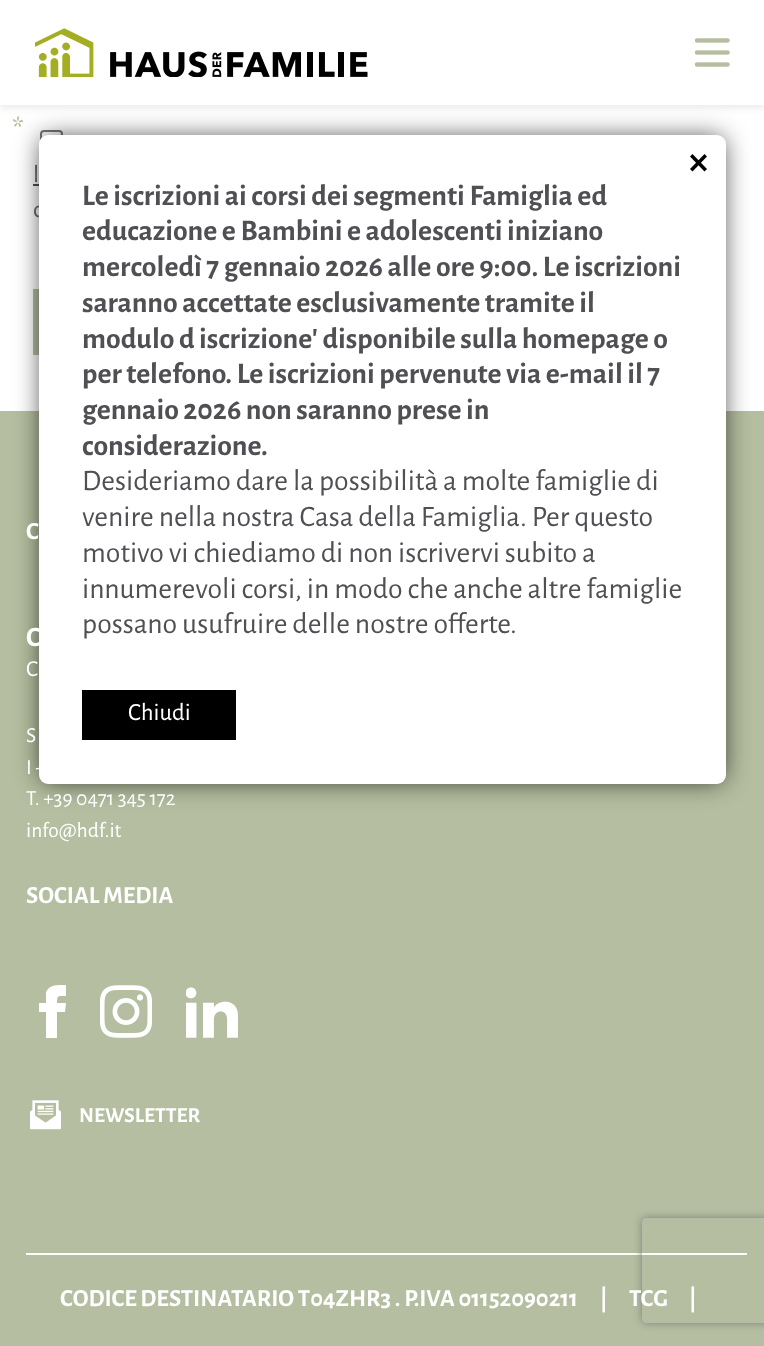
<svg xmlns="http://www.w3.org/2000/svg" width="764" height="1346">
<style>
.a{font:32px Alegreya Sans;fill:#b5bea0}
.b{font:24.6px Alegreya Sans;fill:#504f53}
.c{font:bold 29.75px Alegreya Sans;fill:#504f53}
.d{font:29.75px Alegreya Sans;fill:#504f53}
.e{font:24.6px Alegreya Sans;fill:#fff}
.f{font:bold 24.6px Alegreya Sans;fill:#fff}
.g{font:bold 28px Alegreya Sans;letter-spacing:3px;fill:#fff}
.h{font:23px Alegreya Sans;fill:#fff}
.i{font:21.5px Alegreya Sans;fill:#fff}
.j{font:bold 21.5px Alegreya Sans;fill:#fff}
</style>
<defs>
<clipPath id="clip1"><path d="M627 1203h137v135h-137zm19 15h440c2 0 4 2 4 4v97c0 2-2 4-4 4h-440c-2 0-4-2-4-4v-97c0-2 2-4 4-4z" clip-rule="evenodd"/></clipPath>
</defs>
<rect width="100%" height="100%" fill="#fff"/>
<path fill="#0000001a" filter="blur(4.5px)" d="M0 2h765v105H0z"/>
<path fill="#fff" d="M0 0h764v105H0z"/>
<image href="1.png" x="35" y="28" width="333" height="49"/>
<image href="2.png" x="695" y="38" width="35" height="29"/>
<rect fill="none" stroke="#767676" stroke-width="2" x="41" y="131" width="21" height="20" rx="3"/>
<path fill="#504f53" d="M33 184h6v2H33z"/>
<path fill="#b5bea0" d="M33 289h6v66H33z"/>
<path fill="#b5bea0" d="M0 411h764v935H0z"/>
<rect fill="#000000bf" filter="blur(13px)" x="42" y="138" width="681" height="643" rx="5"/>
<path fill="#fff" d="M46 1003h-7v9h7v26h11v-26h8l1-9h-9c0-8 1-7 9-7v-11c-7 0-18-1-20 8z"/>
<image href="3.png" x="100" y="985" width="52" height="53"/>
<image href="4.png" x="186" y="987" width="52" height="51"/>
<image href="5.png" x="30" y="1100" width="31" height="30"/>
<path fill="#fff" d="M26 1253h721v2H26z"/>
<g clip-path="url(#clip1)">
<rect fill="#808080" filter="blur(4.5px)" x="642" y="1218" width="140" height="105" rx="4"/>
</g>
<text class="a" x="12" y="140">*</text>
<text class="b" x="33" y="182">l</text>
<text class="b" x="33" y="217">c</text>
<rect fill="#fff" x="39" y="135" width="687" height="649" rx="9"/>
<path fill="#000" d="M692.5 154l14.5 15l-2.5 2.5l-14.5-15z"/>
<path fill="#000" d="M704.5 154l2.5 2.5l-14.5 15l-2.5-2.5z"/>
<text class="c" x="82" y="205">Le iscrizioni ai corsi dei segmenti Famiglia ed</text>
<text class="c" x="82" y="240">educazione e Bambini e adolescenti iniziano</text>
<text class="c" x="82" y="276">mercoledì 7 gennaio 2026 alle ore 9:00. Le iscrizioni</text>
<text class="c" x="82" y="312">saranno accettate esclusivamente tramite il</text>
<text class="c" x="82" y="348">modulo d iscrizione' disponibile sulla homepage o</text>
<text class="c" x="82" y="383">per telefono. Le iscrizioni pervenute via e-mail il 7</text>
<text class="c" x="82" y="419">gennaio 2026 non saranno prese in</text>
<text class="c" x="82" y="455">considerazione.</text>
<text class="d" x="82" y="490">Desideriamo dare la possibilità a molte famiglie di</text>
<text class="d" x="82" y="526">venire nella nostra Casa della Famiglia. Per questo</text>
<text class="d" x="82" y="562">motivo vi chiediamo di non iscrivervi subito a</text>
<text class="d" x="82" y="598">innumerevoli corsi, in modo che anche altre famiglie</text>
<text class="d" x="82" y="633">possano usufruire delle nostre offerte.</text>
<path fill="#000" d="M82 690h154v50H82z"/>
<text class="e" x="128" y="720">Chiudi</text>
<text class="f" x="26" y="539">C</text>
<text class="g" x="26" y="646">C</text>
<text class="h" x="26" y="676">C</text>
<text class="i" x="26" y="742">S</text>
<text class="i" x="26" y="774">I -</text>
<text class="i" x="26" y="805">T. +39 0471 345 172</text>
<text class="i" x="26" y="837">info@hdf.it</text>
<text class="f" x="26" y="903">SOCIAL MEDIA</text>
<text class="j" x="79" y="1122">NEWSLETTER</text>
<text class="f" x="60" y="1306">CODICE DESTINATARIO T04ZHR3 . P.IVA 01152090211</text>
<text class="f" x="600" y="1306">|</text>
<text class="f" x="629" y="1306">TCG</text>
<text class="f" x="689" y="1306">|</text>
</svg>
